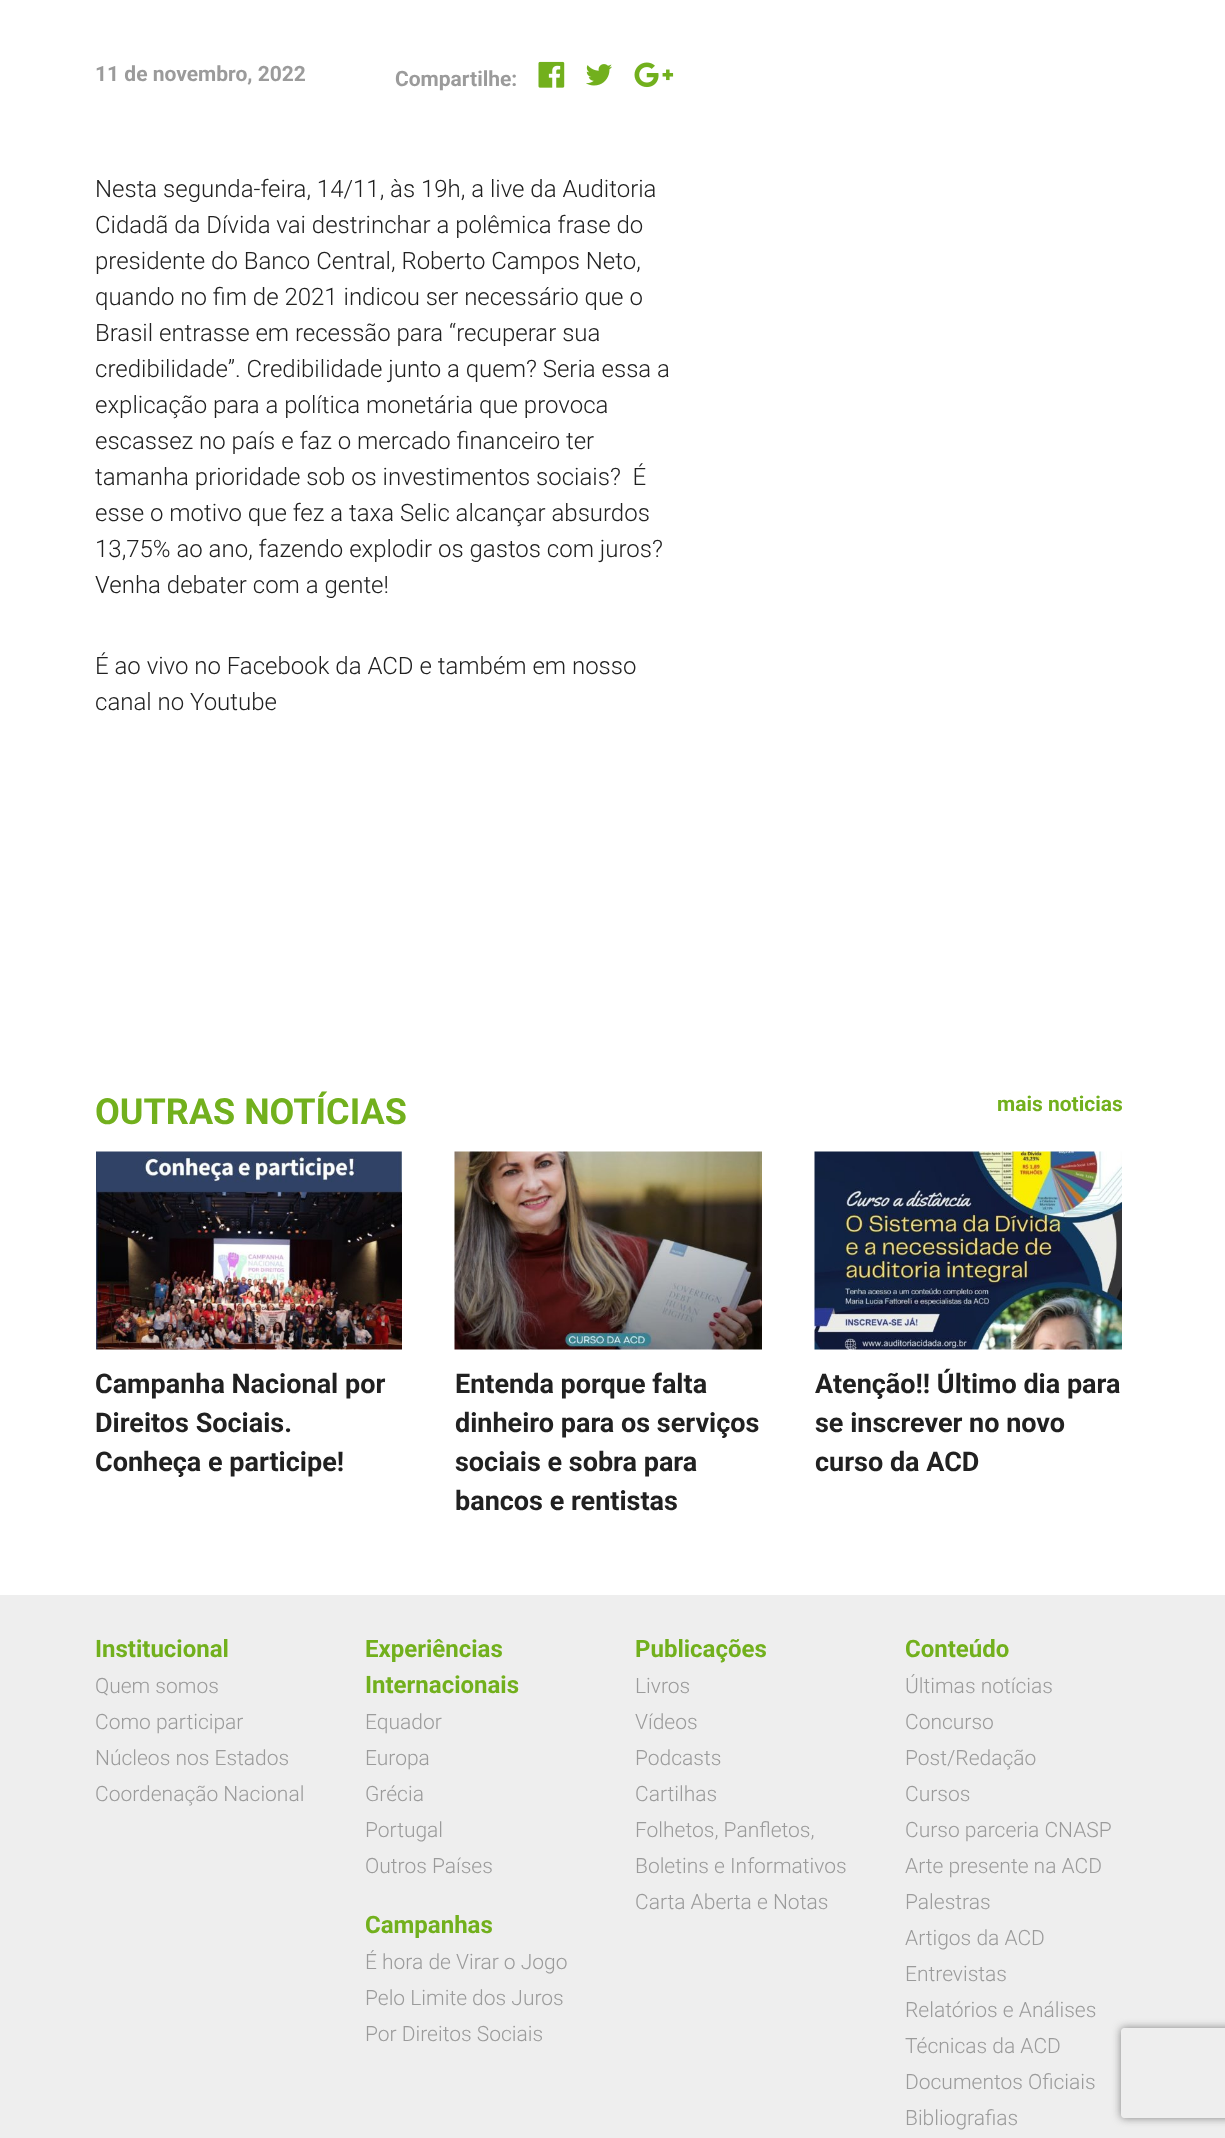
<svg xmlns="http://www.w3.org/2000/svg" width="1225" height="2138">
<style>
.a{font:bold 21px Roboto;fill:#9b9b9b}
.b{font:300 24px Roboto;fill:#212121}
.c{font:bold 36px Roboto;fill:#72b01d}
.d{font:bold 21px Roboto;fill:#72b01d}
.e{font:bold 27px Roboto;fill:#212121}
.f{font:bold 24px Roboto;fill:#72b01d}
.g{font:300 21px Roboto;fill:#9b9b9b}
</style>
<defs>
<clipPath id="clip1"><path d="M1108 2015h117v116h-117zm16 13h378c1.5 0 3 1.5 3 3v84c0 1.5-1.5 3-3 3h-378c-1.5 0-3-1.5-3-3v-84c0-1.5 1.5-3 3-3z" clip-rule="evenodd"/></clipPath>
</defs>
<rect width="100%" height="100%" fill="#fff"/>
<image href="1.png" x="538" y="61" width="27" height="27"/>
<image href="2.png" x="586" y="64" width="26" height="22"/>
<image href="3.png" x="634" y="62" width="40" height="26"/>
<image href="4.png" x="96" y="1151" width="306" height="199"/>
<image href="5.png" x="454" y="1151" width="308" height="199"/>
<image href="6.png" x="814" y="1151" width="308" height="199"/>
<path fill="#eee" d="M0 1595h1225v543H0z"/>
<g clip-path="url(#clip1)">
<rect fill="#808080" filter="blur(4px)" x="1121" y="2028" width="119" height="90" rx="3"/>
</g>
<text class="a" x="95" y="81">11 de novembro, 2022</text>
<text class="a" x="395" y="86">Compartilhe:</text>
<text class="b" x="95" y="197">Nesta segunda-feira, 14/11, às 19h, a live da Auditoria</text>
<text class="b" x="95" y="233">Cidadã da Dívida vai destrinchar a polêmica frase do</text>
<text class="b" x="95" y="269">presidente do Banco Central, Roberto Campos Neto,</text>
<text class="b" x="95" y="305">quando no fim de 2021 indicou ser necessário que o</text>
<text class="b" x="95" y="341">Brasil entrasse em recessão para “recuperar sua</text>
<text class="b" x="95" y="377">credibilidade”. Credibilidade junto a quem? Seria essa a</text>
<text class="b" x="95" y="413">explicação para a política monetária que provoca</text>
<text class="b" x="95" y="449">escassez no país e faz o mercado financeiro ter</text>
<text class="b" xml:space="preserve" x="95" y="485">tamanha prioridade sob os investimentos sociais?  É</text>
<text class="b" x="95" y="521">esse o motivo que fez a taxa Selic alcançar absurdos</text>
<text class="b" x="95" y="557">13,75% ao ano, fazendo explodir os gastos com juros?</text>
<text class="b" x="95" y="593">Venha debater com a gente!</text>
<text class="b" x="95" y="674">É ao vivo no Facebook da ACD e também em nosso</text>
<text class="b" x="95" y="710">canal no Youtube</text>
<text class="c" x="95" y="1124">OUTRAS NOTÍCIAS</text>
<text class="d" x="997" y="1111">mais noticias</text>
<text class="e" x="95" y="1393">Campanha Nacional por</text>
<text class="e" x="95" y="1432">Direitos Sociais.</text>
<text class="e" x="95" y="1471">Conheça e participe!</text>
<text class="e" x="455" y="1393">Entenda porque falta</text>
<text class="e" x="455" y="1432">dinheiro para os serviços</text>
<text class="e" x="455" y="1471">sociais e sobra para</text>
<text class="e" x="455" y="1510">bancos e rentistas</text>
<text class="e" x="815" y="1393">Atenção!! Último dia para</text>
<text class="e" x="815" y="1432">se inscrever no novo</text>
<text class="e" x="815" y="1471">curso da ACD</text>
<text class="f" x="95" y="1657">Institucional</text>
<text class="g" x="95" y="1693">Quem somos</text>
<text class="g" x="95" y="1729">Como participar</text>
<text class="g" x="95" y="1765">Núcleos nos Estados</text>
<text class="g" x="95" y="1801">Coordenação Nacional</text>
<text class="f" x="365" y="1657">Experiências</text>
<text class="f" x="365" y="1693">Internacionais</text>
<text class="g" x="365" y="1729">Equador</text>
<text class="g" x="365" y="1765">Europa</text>
<text class="g" x="365" y="1801">Grécia</text>
<text class="g" x="365" y="1837">Portugal</text>
<text class="g" x="365" y="1873">Outros Países</text>
<text class="f" x="365" y="1933">Campanhas</text>
<text class="g" x="365" y="1969">É hora de Virar o Jogo</text>
<text class="g" x="365" y="2005">Pelo Limite dos Juros</text>
<text class="g" x="365" y="2041">Por Direitos Sociais</text>
<text class="f" x="635" y="1657">Publicações</text>
<text class="g" x="635" y="1693">Livros</text>
<text class="g" x="635" y="1729">Vídeos</text>
<text class="g" x="635" y="1765">Podcasts</text>
<text class="g" x="635" y="1801">Cartilhas</text>
<text class="g" x="635" y="1837">Folhetos, Panfletos,</text>
<text class="g" x="635" y="1873">Boletins e Informativos</text>
<text class="g" x="635" y="1909">Carta Aberta e Notas</text>
<text class="f" x="905" y="1657">Conteúdo</text>
<text class="g" x="905" y="1693">Últimas notícias</text>
<text class="g" x="905" y="1729">Concurso</text>
<text class="g" x="905" y="1765">Post/Redação</text>
<text class="g" x="905" y="1801">Cursos</text>
<text class="g" x="905" y="1837">Curso parceria CNASP</text>
<text class="g" x="905" y="1873">Arte presente na ACD</text>
<text class="g" x="905" y="1909">Palestras</text>
<text class="g" x="905" y="1945">Artigos da ACD</text>
<text class="g" x="905" y="1981">Entrevistas</text>
<text class="g" x="905" y="2017">Relatórios e Análises</text>
<text class="g" x="905" y="2053">Técnicas da ACD</text>
<text class="g" x="905" y="2089">Documentos Oficiais</text>
<text class="g" x="905" y="2125">Bibliografias</text>
</svg>
